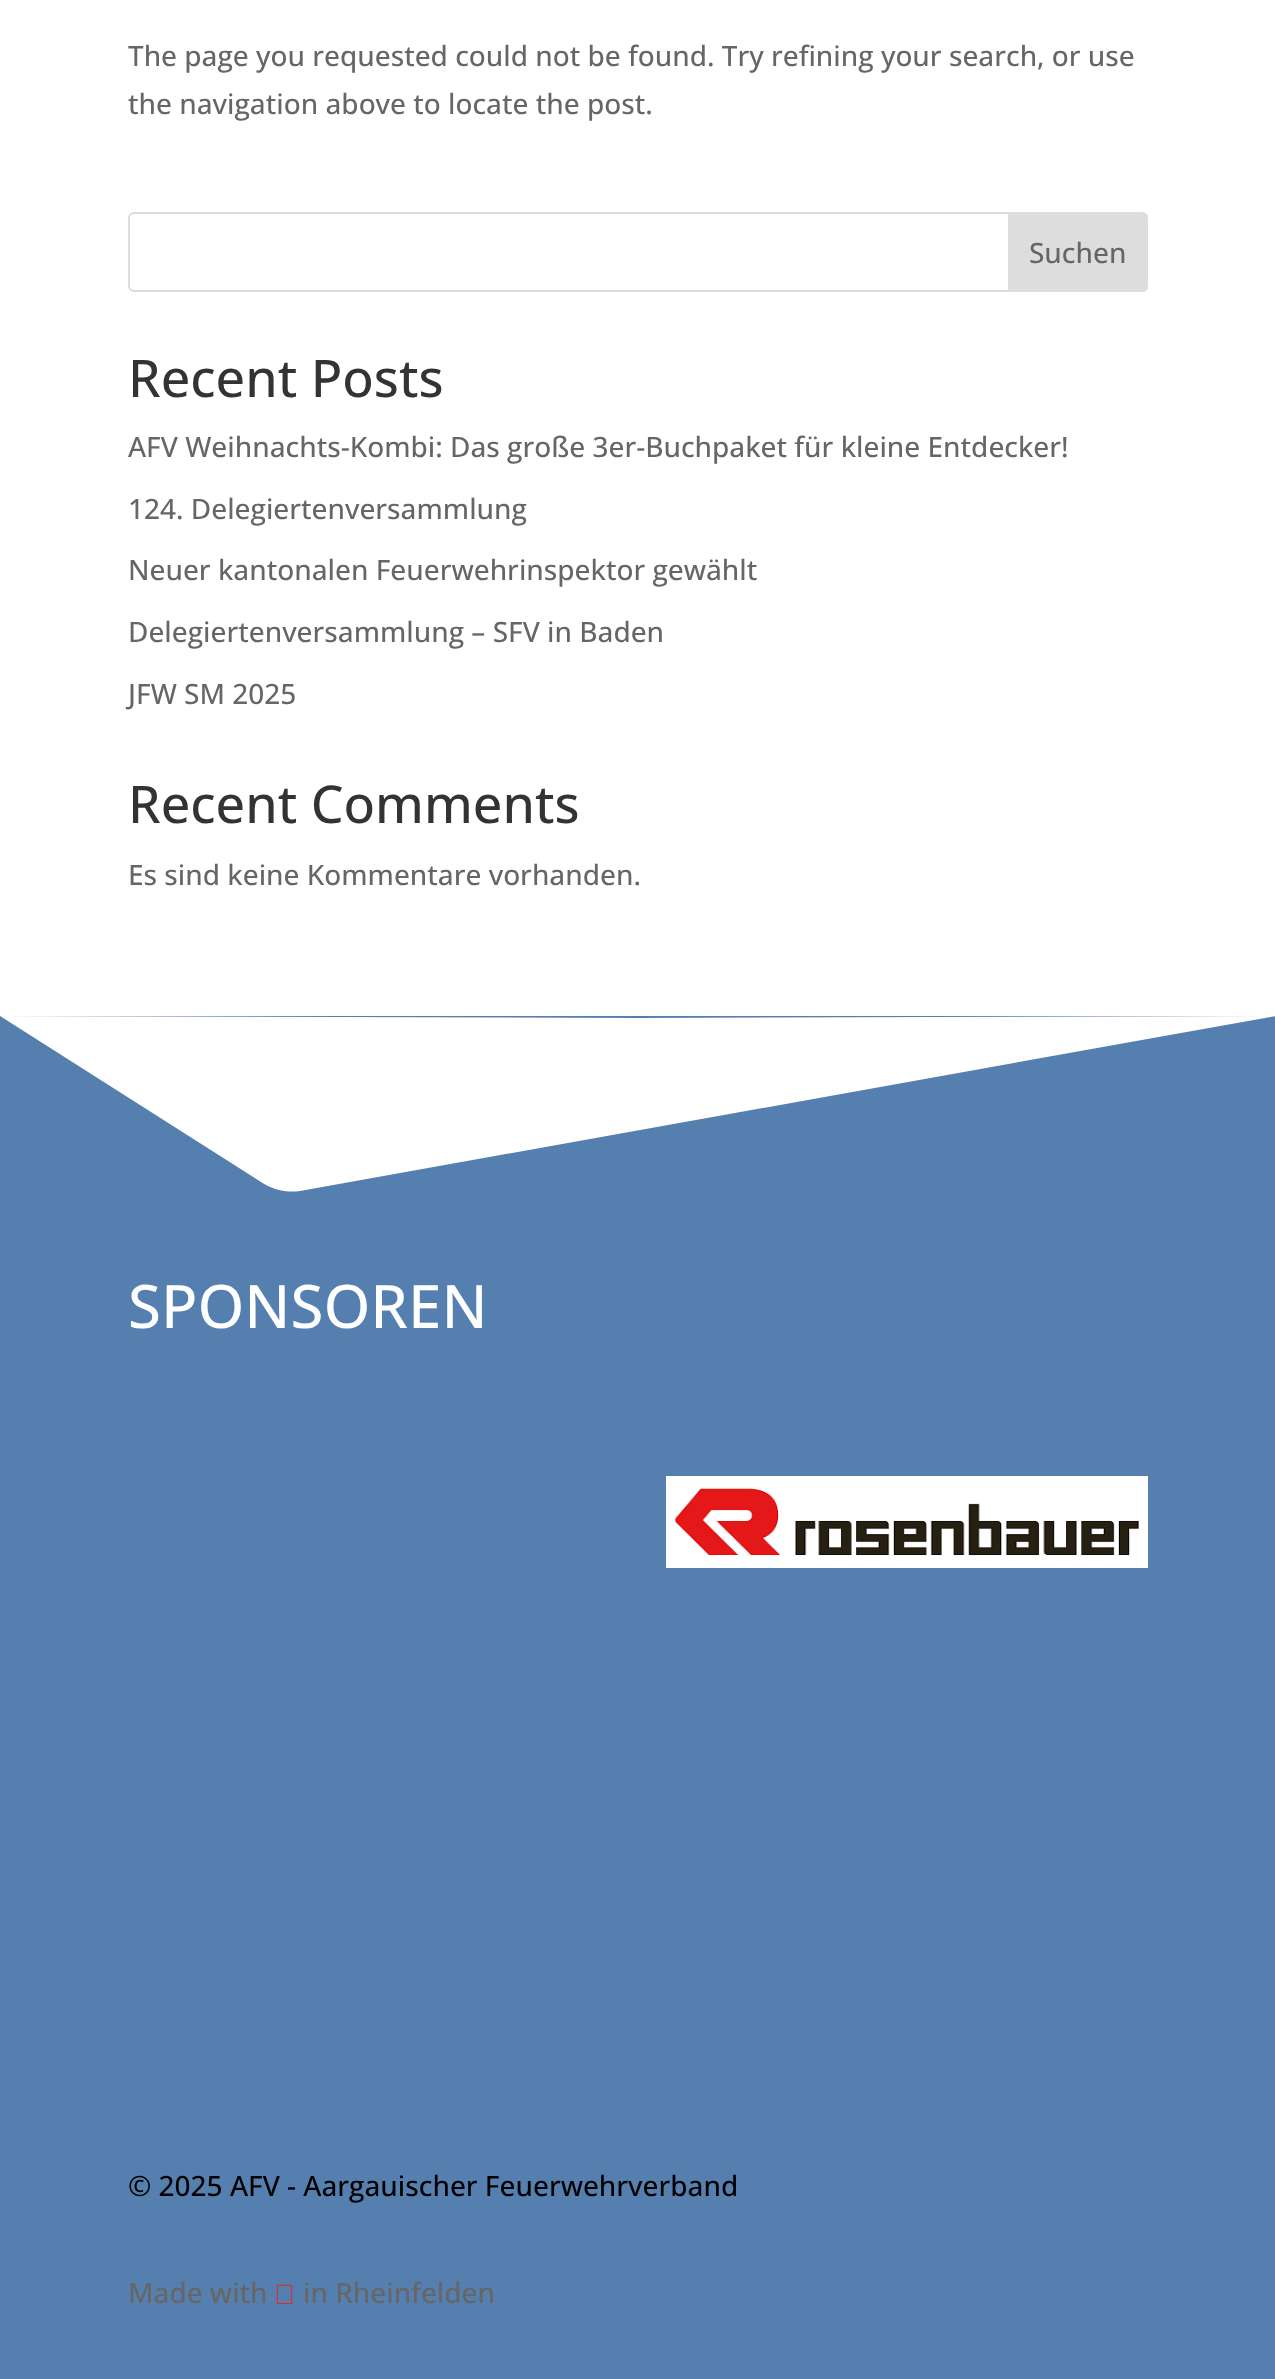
<svg xmlns="http://www.w3.org/2000/svg" width="1275" height="2379">
<style>
.a{font:500 28px Open Sans;fill:#666}
.b{font:500 52px Open Sans;fill:#333}
.c{font:500 60px Open Sans;fill:#fff}
.d{font:500 28px Open Sans;fill:#000}
</style>
<rect width="100%" height="100%" fill="#fff"/>
<rect fill="none" stroke="#ddd" stroke-width="2" x="129" y="213" width="1018" height="78" rx="5"/>
<path fill="#ddd" stroke="#ddd" stroke-width="2" d="M1009 213h133c3 0 5 2 5 5v68c0 3-2 5-5 5h-133z"/>
<path fill="#557fae" d="M638 1018l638-2h-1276z"/>
<path fill="#557fae" d="M0 1016l261 166c12 8 26 11 39 9l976-175v200h-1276z"/>
<path fill="#557fae" d="M0 1216h1275v1163H0z"/>
<image href="1.png" x="666" y="1476" width="482" height="92"/>
<image href="2.png" x="276" y="2284" width="17" height="20"/>
<text class="a" x="128" y="66">The page you requested could not be found. Try refining your search, or use</text>
<text class="a" x="128" y="114">the navigation above to locate the post.</text>
<text class="a" x="1029" y="263">Suchen</text>
<text class="b" x="128" y="397">Recent Posts</text>
<text class="a" x="128" y="457">AFV Weihnachts-Kombi: Das große 3er-Buchpaket für kleine Entdecker!</text>
<text class="a" x="128" y="519">124. Delegiertenversammlung</text>
<text class="a" x="128" y="580">Neuer kantonalen Feuerwehrinspektor gewählt</text>
<text class="a" x="128" y="642">Delegiertenversammlung – SFV in Baden</text>
<text class="a" x="128" y="704">JFW SM 2025</text>
<text class="b" x="128" y="823">Recent Comments</text>
<text class="a" x="128" y="885">Es sind keine Kommentare vorhanden.</text>
<text class="c" x="128" y="1328">SPONSOREN</text>
<text class="d" x="128" y="2196">© 2025 AFV - Aargauischer Feuerwehrverband</text>
<text class="a" x="128" y="2303">Made with</text>
<text class="a" x="303" y="2303">in Rheinfelden</text>
</svg>
